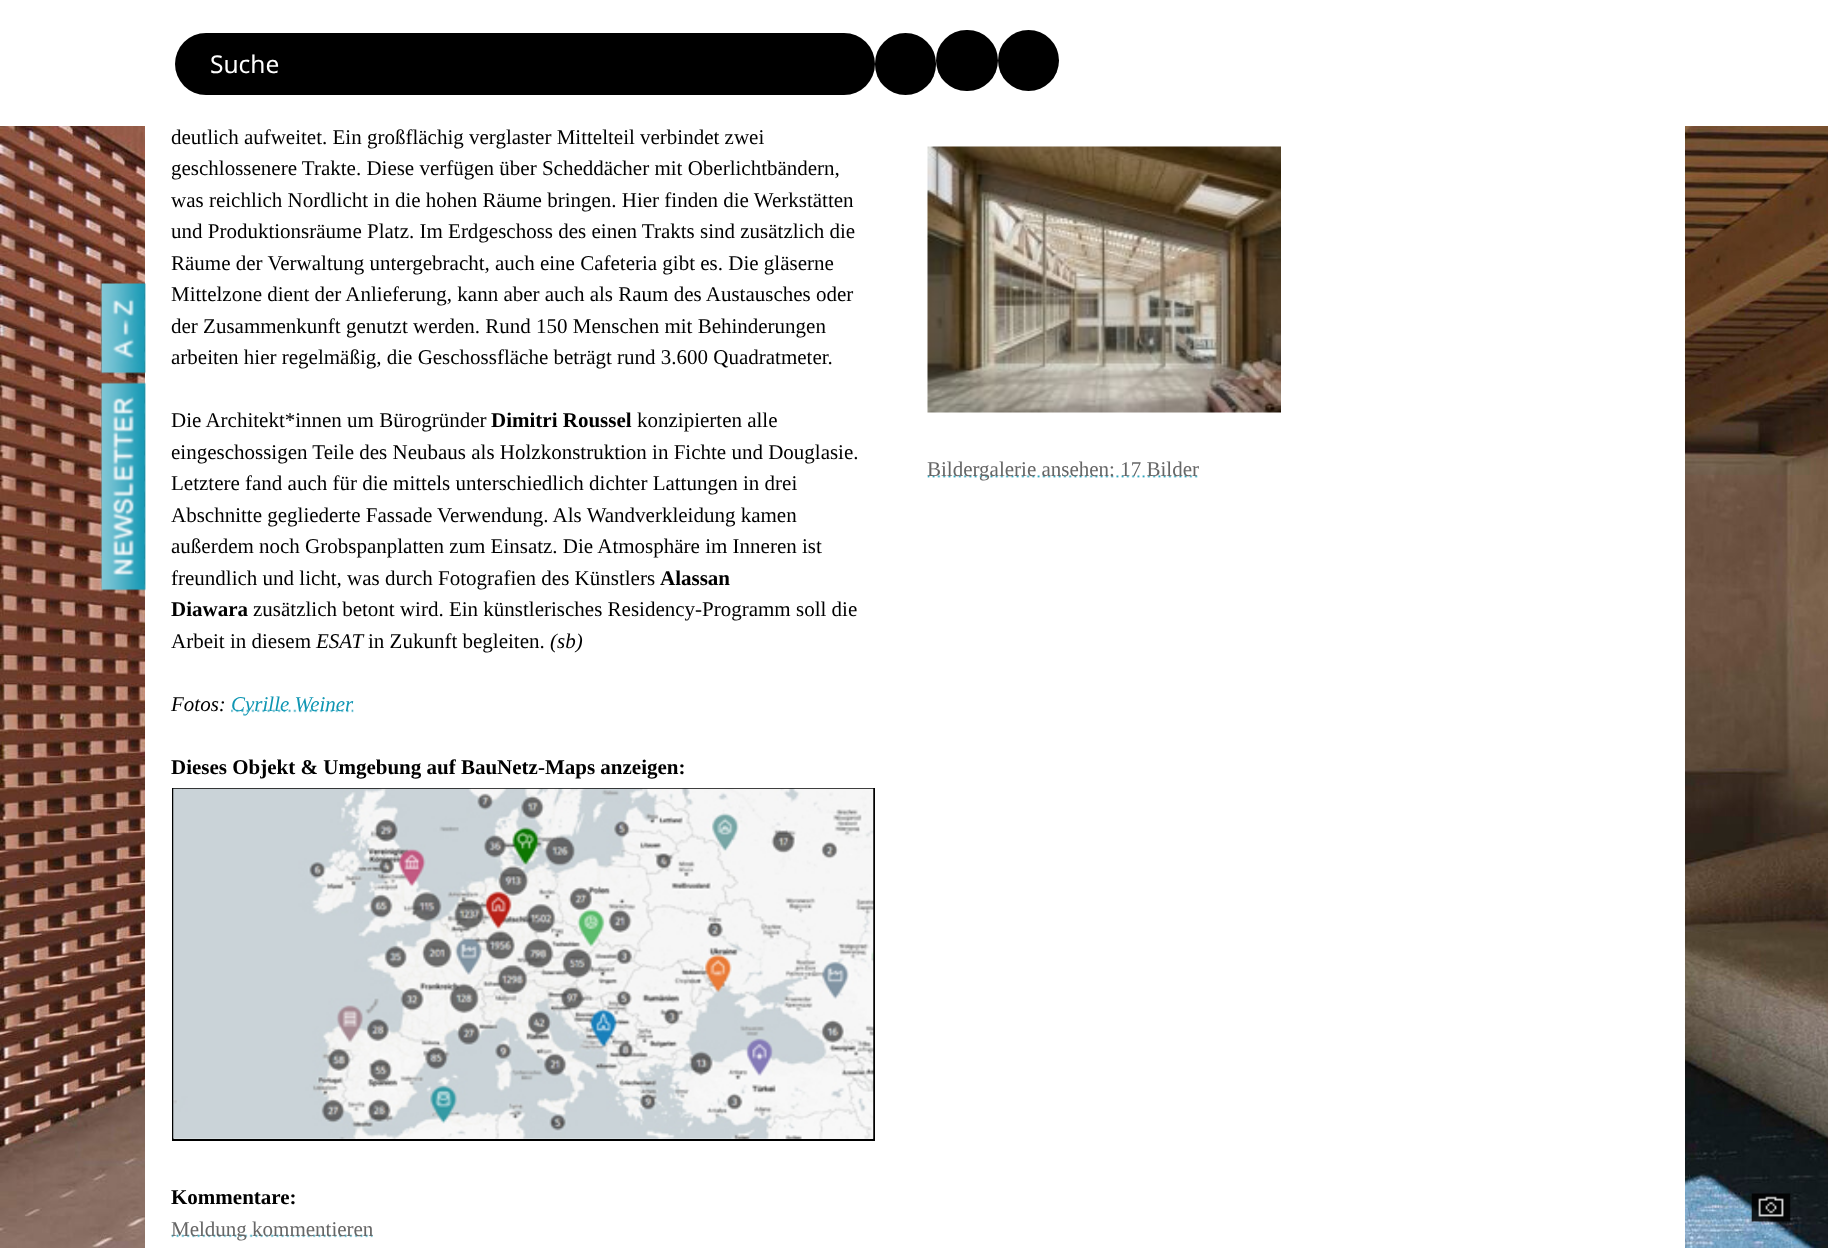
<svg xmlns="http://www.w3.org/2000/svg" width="1828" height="1248">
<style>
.a{font:24.5px Noto Sans;fill:#fff}
.b{font:21px Liberation Serif;fill:#000}
.c{font:bold 21px Liberation Serif;fill:#000}
.d{font:italic 21px Liberation Serif;fill:#000}
.e{font:italic 21px Liberation Serif;fill:#0f96b3}
.f{font:21px Liberation Serif;fill:#666}
</style>
<rect width="100%" height="100%" fill="#fff"/>
<image href="1.png" x="0" y="126" width="1828" height="1122"/>
<rect fill="#000" x="175" y="33" width="700" height="62" rx="31"/>
<rect fill="#000" x="875" y="33" width="61" height="62" rx="30.5"/>
<rect fill="#000" x="936" y="30" width="62" height="61" rx="30.5"/>
<circle fill="#000" cx="1028.5" cy="60.5" r="30.5"/>
<path fill="#fff" d="M145 126h1540v1122H145z"/>
<image href="2.png" x="100" y="283" width="46" height="91"/>
<image href="3.png" x="100" y="382" width="46" height="209"/>
<image href="4.png" x="231" y="709" width="123" height="4"/>
<path fill="none" stroke="#000" stroke-width="2" d="M173 789h701v351H173z"/>
<image href="5.png" x="173" y="788" width="701" height="351"/>
<image href="6.png" x="171" y="1234" width="202" height="4"/>
<image href="7.png" x="927" y="146" width="354" height="267"/>
<image href="8.png" x="927" y="475" width="271" height="3"/>
<image href="9.png" x="1751" y="1193" width="40" height="29"/>
<text class="a" x="210" y="73">Suche</text>
<text class="b" x="171" y="144">deutlich aufweitet. Ein großflächig verglaster Mittelteil verbindet zwei</text>
<text class="b" x="171" y="175">geschlossenere Trakte. Diese verfügen über Scheddächer mit Oberlichtbändern,</text>
<text class="b" x="171" y="207">was reichlich Nordlicht in die hohen Räume bringen. Hier finden die Werkstätten</text>
<text class="b" x="171" y="238">und Produktionsräume Platz. Im Erdgeschoss des einen Trakts sind zusätzlich die</text>
<text class="b" x="171" y="270">Räume der Verwaltung untergebracht, auch eine Cafeteria gibt es. Die gläserne</text>
<text class="b" x="171" y="301">Mittelzone dient der Anlieferung, kann aber auch als Raum des Austausches oder</text>
<text class="b" x="171" y="333">der Zusammenkunft genutzt werden. Rund 150 Menschen mit Behinderungen</text>
<text class="b" x="171" y="364">arbeiten hier regelmäßig, die Geschossfläche beträgt rund 3.600 Quadratmeter.</text>
<text class="b" x="171" y="427">Die Architekt*innen um Bürogründer</text>
<text class="c" x="491" y="427">Dimitri Roussel</text>
<text class="b" x="637" y="427">konzipierten alle</text>
<text class="b" x="171" y="459">eingeschossigen Teile des Neubaus als Holzkonstruktion in Fichte und Douglasie.</text>
<text class="b" x="171" y="490">Letztere fand auch für die mittels unterschiedlich dichter Lattungen in drei</text>
<text class="b" x="171" y="522">Abschnitte gegliederte Fassade Verwendung. Als Wandverkleidung kamen</text>
<text class="b" x="171" y="553">außerdem noch Grobspanplatten zum Einsatz. Die Atmosphäre im Inneren ist</text>
<text class="b" x="171" y="585">freundlich und licht, was durch Fotografien des Künstlers</text>
<text class="c" x="660" y="585">Alassan</text>
<text class="c" x="171" y="616">Diawara</text>
<text class="b" x="253" y="616">zusätzlich betont wird. Ein künstlerisches Residency-Programm soll die</text>
<text class="b" x="171" y="648">Arbeit in diesem</text>
<text class="d" x="316" y="648">ESAT</text>
<text class="b" x="368" y="648">in Zukunft begleiten.</text>
<text class="d" x="550" y="648">(sb)</text>
<text class="d" x="171" y="711">Fotos:</text>
<text class="e" x="231" y="711">Cyrille Weiner</text>
<text class="c" x="171" y="774">Dieses Objekt &amp; Umgebung auf BauNetz-Maps anzeigen:</text>
<text class="c" x="171" y="1204">Kommentare:</text>
<text class="f" x="171" y="1236">Meldung kommentieren</text>
<text class="f" x="927" y="476">Bildergalerie ansehen: 17 Bilder</text>
</svg>
